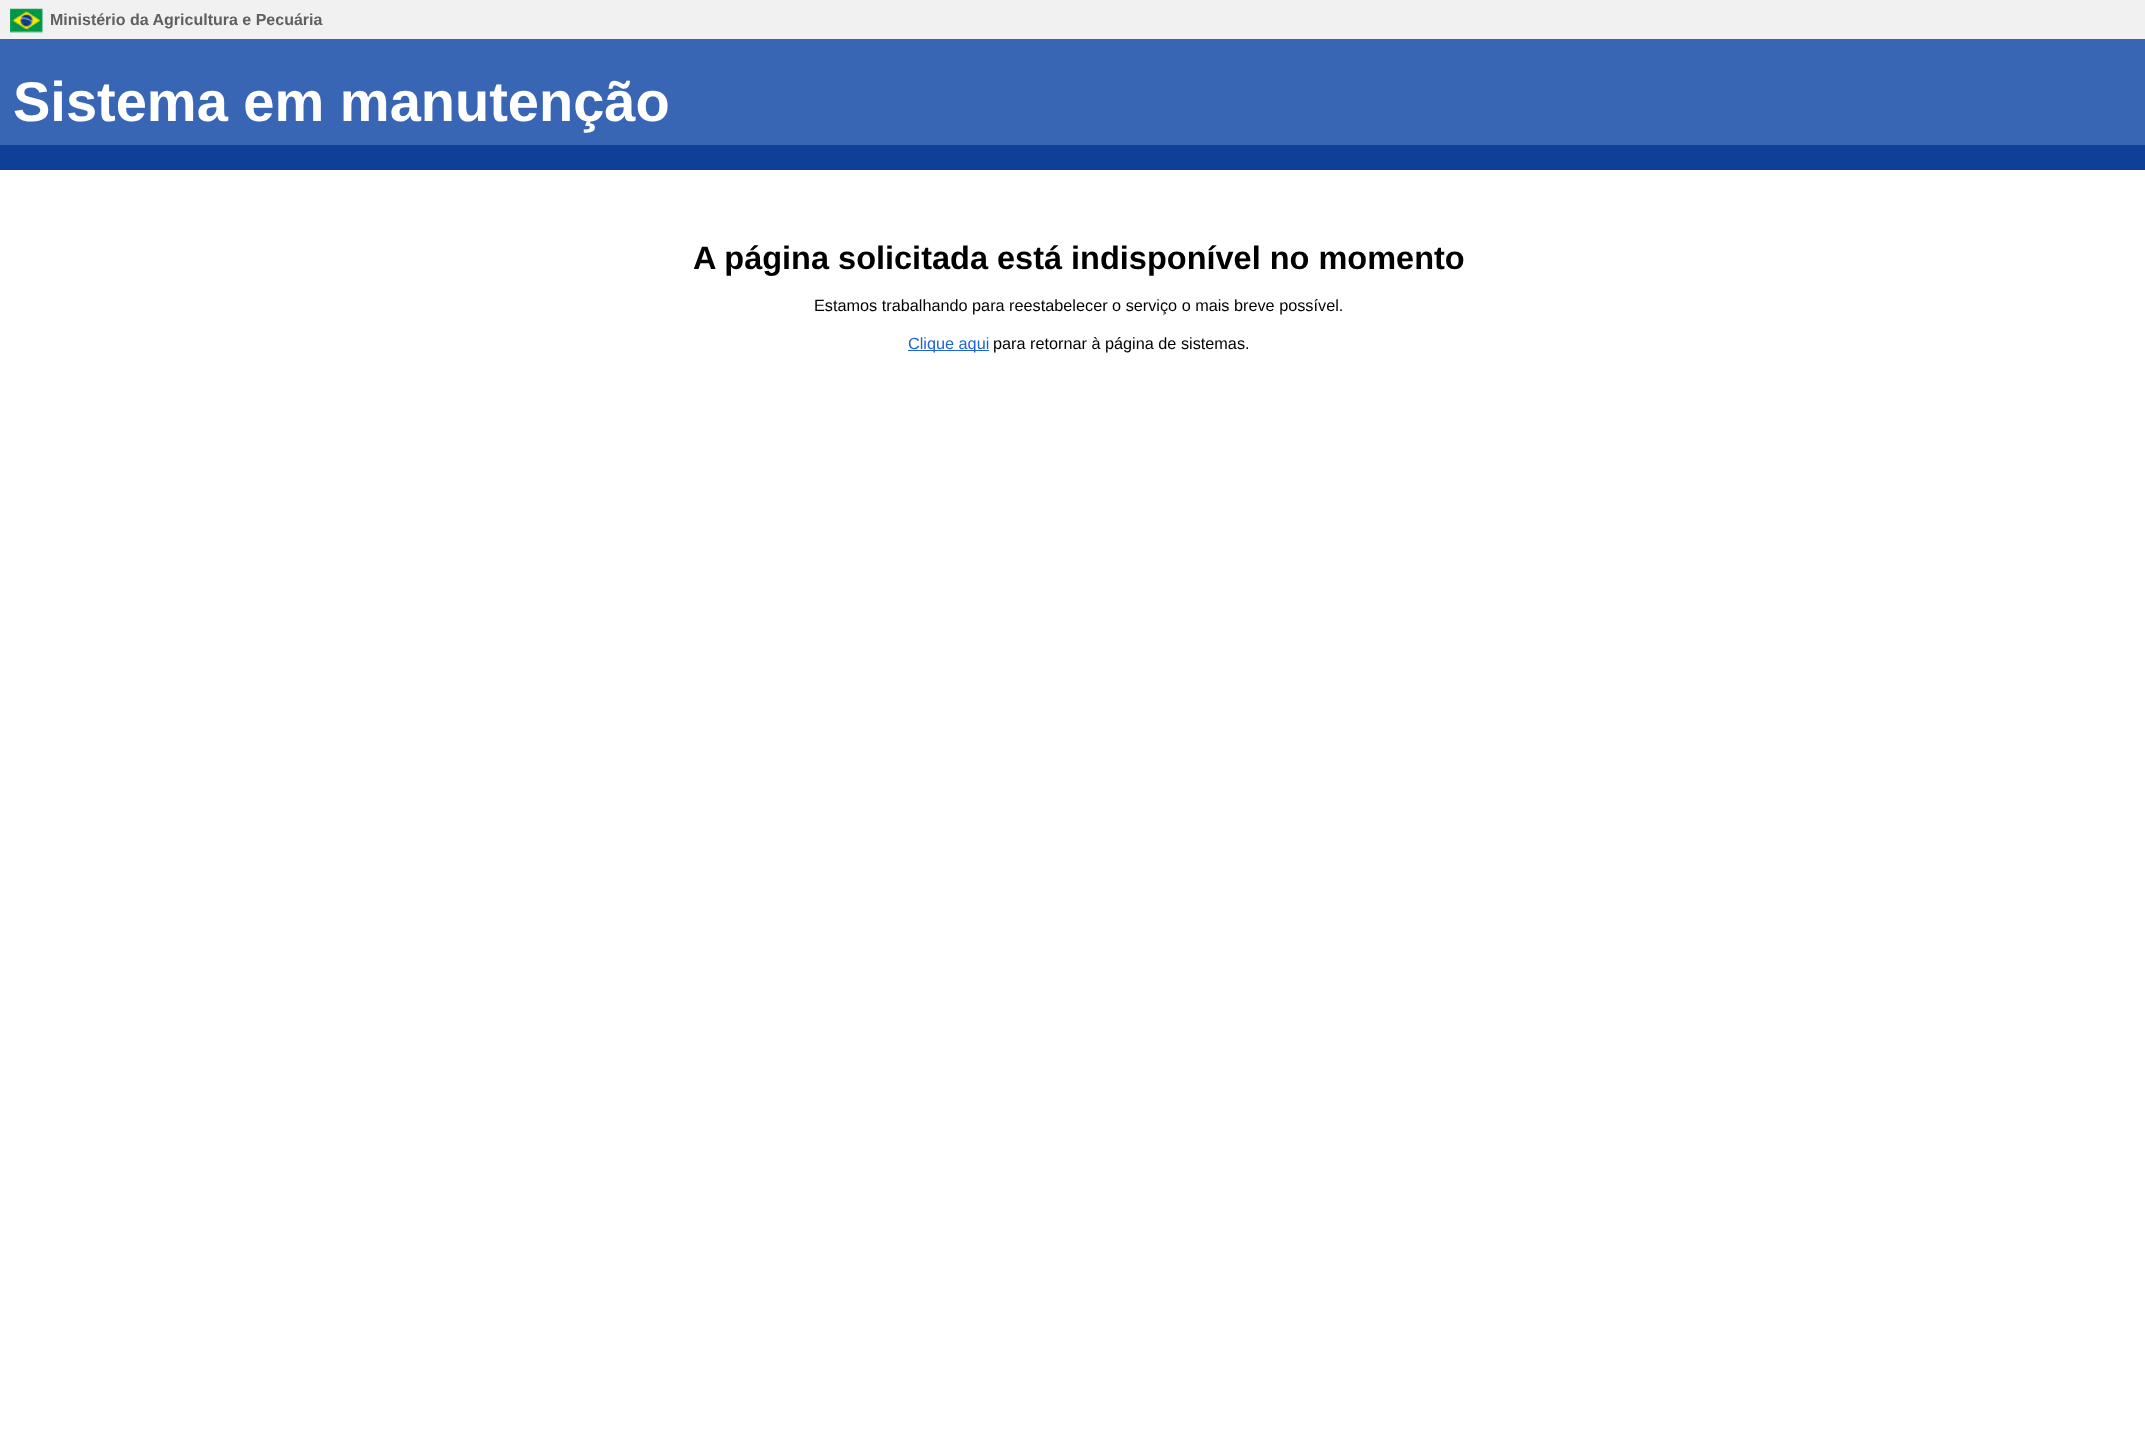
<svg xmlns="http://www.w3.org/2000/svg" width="2145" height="1432">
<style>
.a{font:bold 16px Liberation Sans;fill:#606060}
.b{font:bold 56px Liberation Sans;fill:#fff}
.c{font:bold 32.5px Liberation Sans;fill:#000}
.d{font:16.25px Liberation Sans;fill:#000}
.e{font:16.25px Liberation Sans;fill:#1e64d4}
</style>
<rect width="100%" height="100%" fill="#fff"/>
<path fill="#3866b5" d="M0 39h2145v106H0z"/>
<path fill="#f1f1f1" d="M0 0h2145v39H0z"/>
<image href="1.png" x="10" y="8" width="33" height="25"/>
<path fill="#0f4098" d="M0 145h2145v25H0z"/>
<path fill="#1e64d4" d="M908 350h81v1H908z"/>
<text class="a" x="50" y="25">Ministério da Agricultura e Pecuária</text>
<text class="b" x="13" y="121">Sistema em manutenção</text>
<text class="c" x="693" y="269">A página solicitada está indisponível no momento</text>
<text class="d" x="814" y="311">Estamos trabalhando para reestabelecer o serviço o mais breve possível.</text>
<text class="e" x="908" y="349">Clique aqui</text>
<text class="d" x="993" y="349">para retornar à página de sistemas.</text>
</svg>
